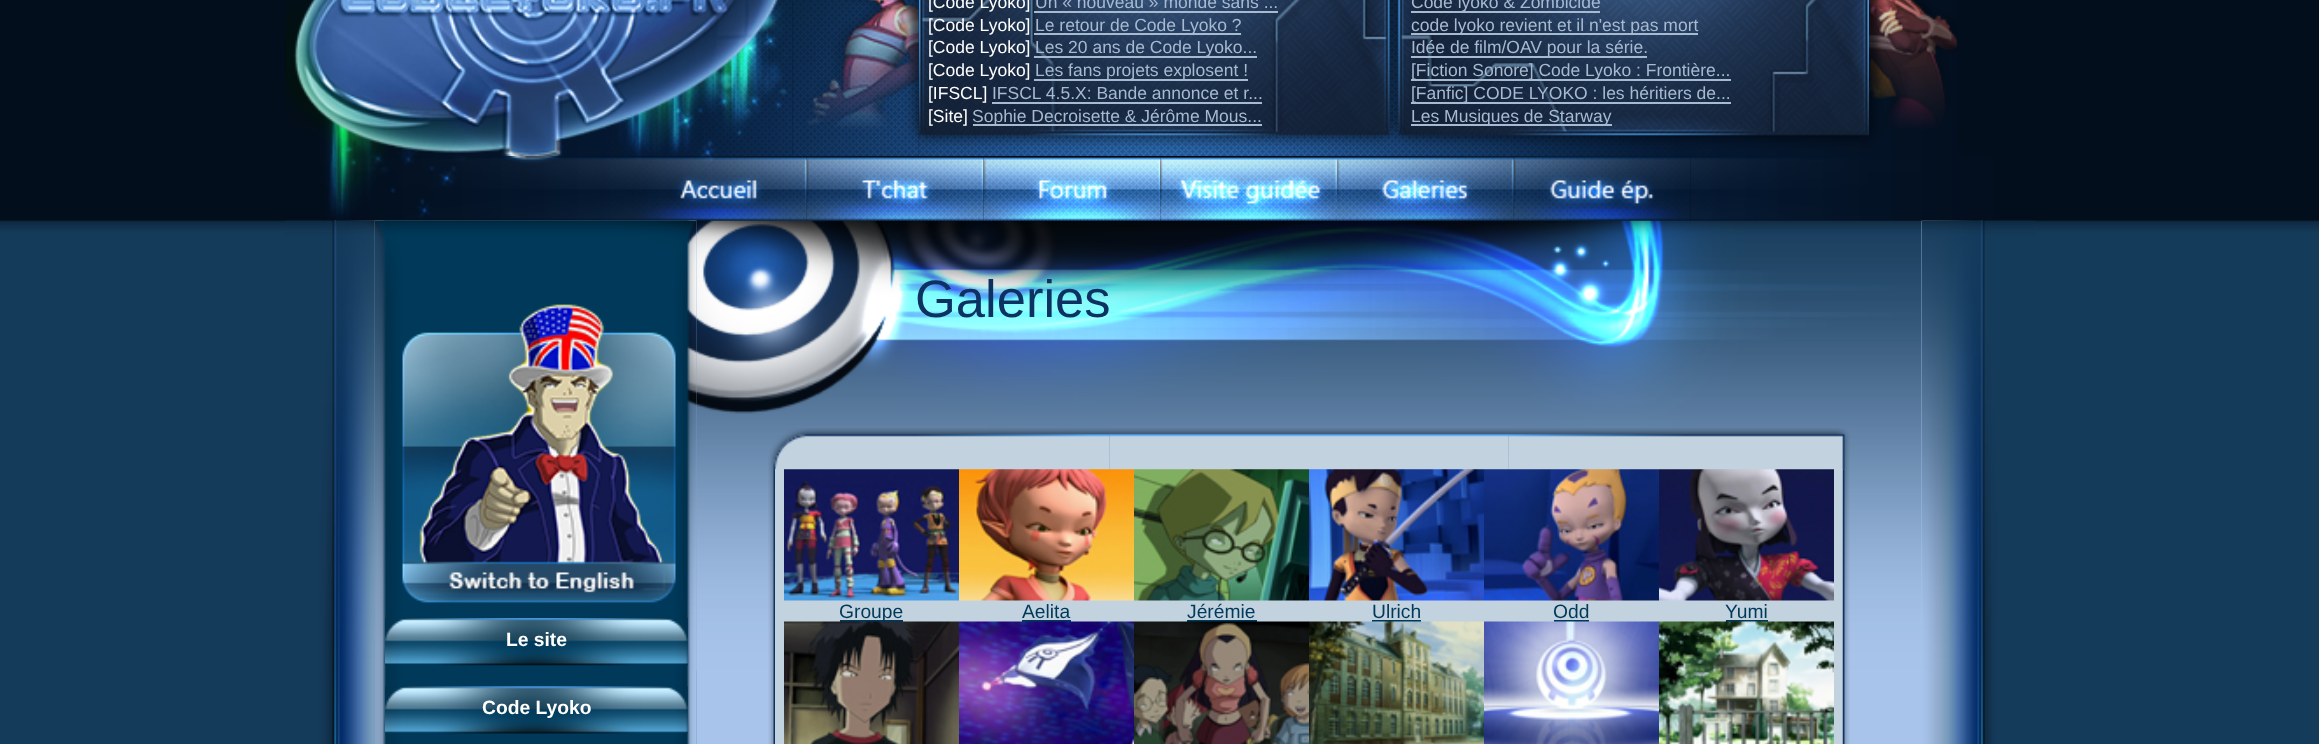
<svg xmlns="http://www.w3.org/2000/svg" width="2319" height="744">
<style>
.a{font:17.5px Liberation Sans;fill:#fff}
.b{font:17.5px Liberation Sans;fill:#a6bad0}
.c{font:52.5px Liberation Sans;fill:#0d3161}
.d{font:19.25px Liberation Sans;fill:#003959}
.e{font:bold 19.25px Liberation Sans;fill:#fff}
</style>
<rect width="100%" height="100%" fill="#153b5b"/>
<image href="1.png" x="0" y="0" width="2319" height="232"/>
<image href="2.png" x="285" y="0" width="508" height="156"/>
<image href="4.png" x="918" y="0" width="951" height="156"/>
<image href="3.png" x="792" y="0" width="127" height="156"/>
<path fill="#a6bad0" d="M1034 11h244v2H1034z"/>
<path fill="#a6bad0" d="M1034 33h207v2H1034z"/>
<path fill="#a6bad0" d="M1034 56h223v2H1034z"/>
<path fill="#a6bad0" d="M1034 79h214v2H1034z"/>
<path fill="#a6bad0" d="M992 102h270v2H992z"/>
<path fill="#a6bad0" d="M973 124h289v2H973z"/>
<path fill="#a6bad0" d="M1411 11h189v2H1411z"/>
<path fill="#a6bad0" d="M1411 33h287v2H1411z"/>
<path fill="#a6bad0" d="M1411 56h236v2H1411z"/>
<path fill="#a6bad0" d="M1411 79h320v2H1411z"/>
<path fill="#a6bad0" d="M1411 102h320v2H1411z"/>
<path fill="#a6bad0" d="M1411 124h201v2H1411z"/>
<image href="5.png" x="1869" y="0" width="89" height="156"/>
<image href="6.png" x="285" y="156" width="345" height="65"/>
<image href="7.png" x="630" y="156" width="177" height="65"/>
<image href="8.png" x="806" y="156" width="178" height="65"/>
<image href="9.png" x="983" y="156" width="178" height="65"/>
<image href="10.png" x="1160" y="156" width="177" height="65"/>
<image href="11.png" x="1337" y="156" width="177" height="65"/>
<image href="12.png" x="1513" y="156" width="178" height="65"/>
<image href="13.png" x="1690" y="156" width="345" height="65"/>
<image href="14.png" x="285" y="220" width="90" height="524"/>
<image href="36.png" x="374" y="220" width="323" height="524"/>
<image href="37.png" x="374" y="220" width="323" height="524"/>
<image href="38.png" x="374" y="220" width="323" height="524"/>
<image href="15.png" x="285" y="220" width="90" height="524"/>
<path fill="#a8c4eb" d="M697 221h1225v523H697z"/>
<image href="16.png" x="696" y="220" width="1226" height="451"/>
<image href="18.png" x="1109" y="428" width="400" height="41"/>
<image href="20.png" x="768" y="469" width="7" height="275"/>
<path fill="#c2d3df" d="M775 469h1068v275H775z"/>
<image href="17.png" x="768" y="428" width="342" height="42"/>
<image href="33.png" x="1842" y="469" width="8" height="275"/>
<image href="19.png" x="1508" y="428" width="342" height="42"/>
<image href="21.png" x="784" y="469" width="175" height="132"/>
<path fill="#003959" d="M840 620h63v2H840z"/>
<image href="22.png" x="959" y="469" width="175" height="132"/>
<path fill="#003959" d="M1022 620h49v2H1022z"/>
<image href="23.png" x="1134" y="469" width="175" height="132"/>
<path fill="#003959" d="M1187 620h70v2H1187z"/>
<image href="24.png" x="1309" y="469" width="175" height="132"/>
<path fill="#003959" d="M1372 620h49v2H1372z"/>
<image href="25.png" x="1484" y="469" width="175" height="132"/>
<path fill="#003959" d="M1554 620h35v2H1554z"/>
<image href="26.png" x="1659" y="469" width="175" height="132"/>
<path fill="#003959" d="M1726 620h42v2H1726z"/>
<image href="28.png" x="959" y="621" width="175" height="123"/>
<image href="29.png" x="1134" y="621" width="175" height="123"/>
<image href="30.png" x="1309" y="621" width="175" height="123"/>
<image href="31.png" x="1484" y="621" width="175" height="123"/>
<image href="32.png" x="1659" y="621" width="175" height="123"/>
<image href="34.png" x="1921" y="220" width="115" height="524"/>
<image href="35.png" x="1921" y="220" width="114" height="524"/>
<image href="39.png" x="402" y="304" width="274" height="299"/>
<image href="40.png" x="385" y="618" width="303" height="48"/>
<image href="41.png" x="385" y="686" width="303" height="48"/>
<text class="a" x="928" y="8">[Code Lyoko]</text>
<text class="b" x="1035" y="8">Un « nouveau » monde sans ...</text>
<text class="a" x="928" y="31">[Code Lyoko]</text>
<text class="b" x="1035" y="31">Le retour de Code Lyoko ?</text>
<text class="a" x="928" y="53">[Code Lyoko]</text>
<text class="b" x="1035" y="53">Les 20 ans de Code Lyoko...</text>
<text class="a" x="928" y="76">[Code Lyoko]</text>
<text class="b" x="1035" y="76">Les fans projets explosent !</text>
<text class="a" x="928" y="99">[IFSCL]</text>
<text class="b" x="992" y="99">IFSCL 4.5.X: Bande annonce et r...</text>
<text class="a" x="928" y="122">[Site]</text>
<text class="b" x="972" y="122">Sophie Decroisette &amp; Jérôme Mous...</text>
<text class="b" x="1411" y="8">Code lyoko &amp; Zombicide</text>
<text class="b" x="1411" y="31">code lyoko revient et il n'est pas mort</text>
<text class="b" x="1411" y="53">Idée de film/OAV pour la série.</text>
<text class="b" x="1411" y="76">[Fiction Sonore] Code Lyoko : Frontière...</text>
<text class="b" x="1411" y="99">[Fanfic] CODE LYOKO : les héritiers de...</text>
<text class="b" x="1411" y="122">Les Musiques de Starway</text>
<text class="c" x="915" y="317">Galeries</text>
<text class="d" x="839" y="618">Groupe</text>
<text class="d" x="1022" y="618">Aelita</text>
<text class="d" x="1187" y="618">Jérémie</text>
<text class="d" x="1372" y="618">Ulrich</text>
<text class="d" x="1553" y="618">Odd</text>
<text class="d" x="1725" y="618">Yumi</text>
<image href="27.png" x="784" y="621" width="175" height="123"/>
<text class="e" x="506" y="646">Le site</text>
<text class="e" x="482" y="714">Code Lyoko</text>
</svg>
